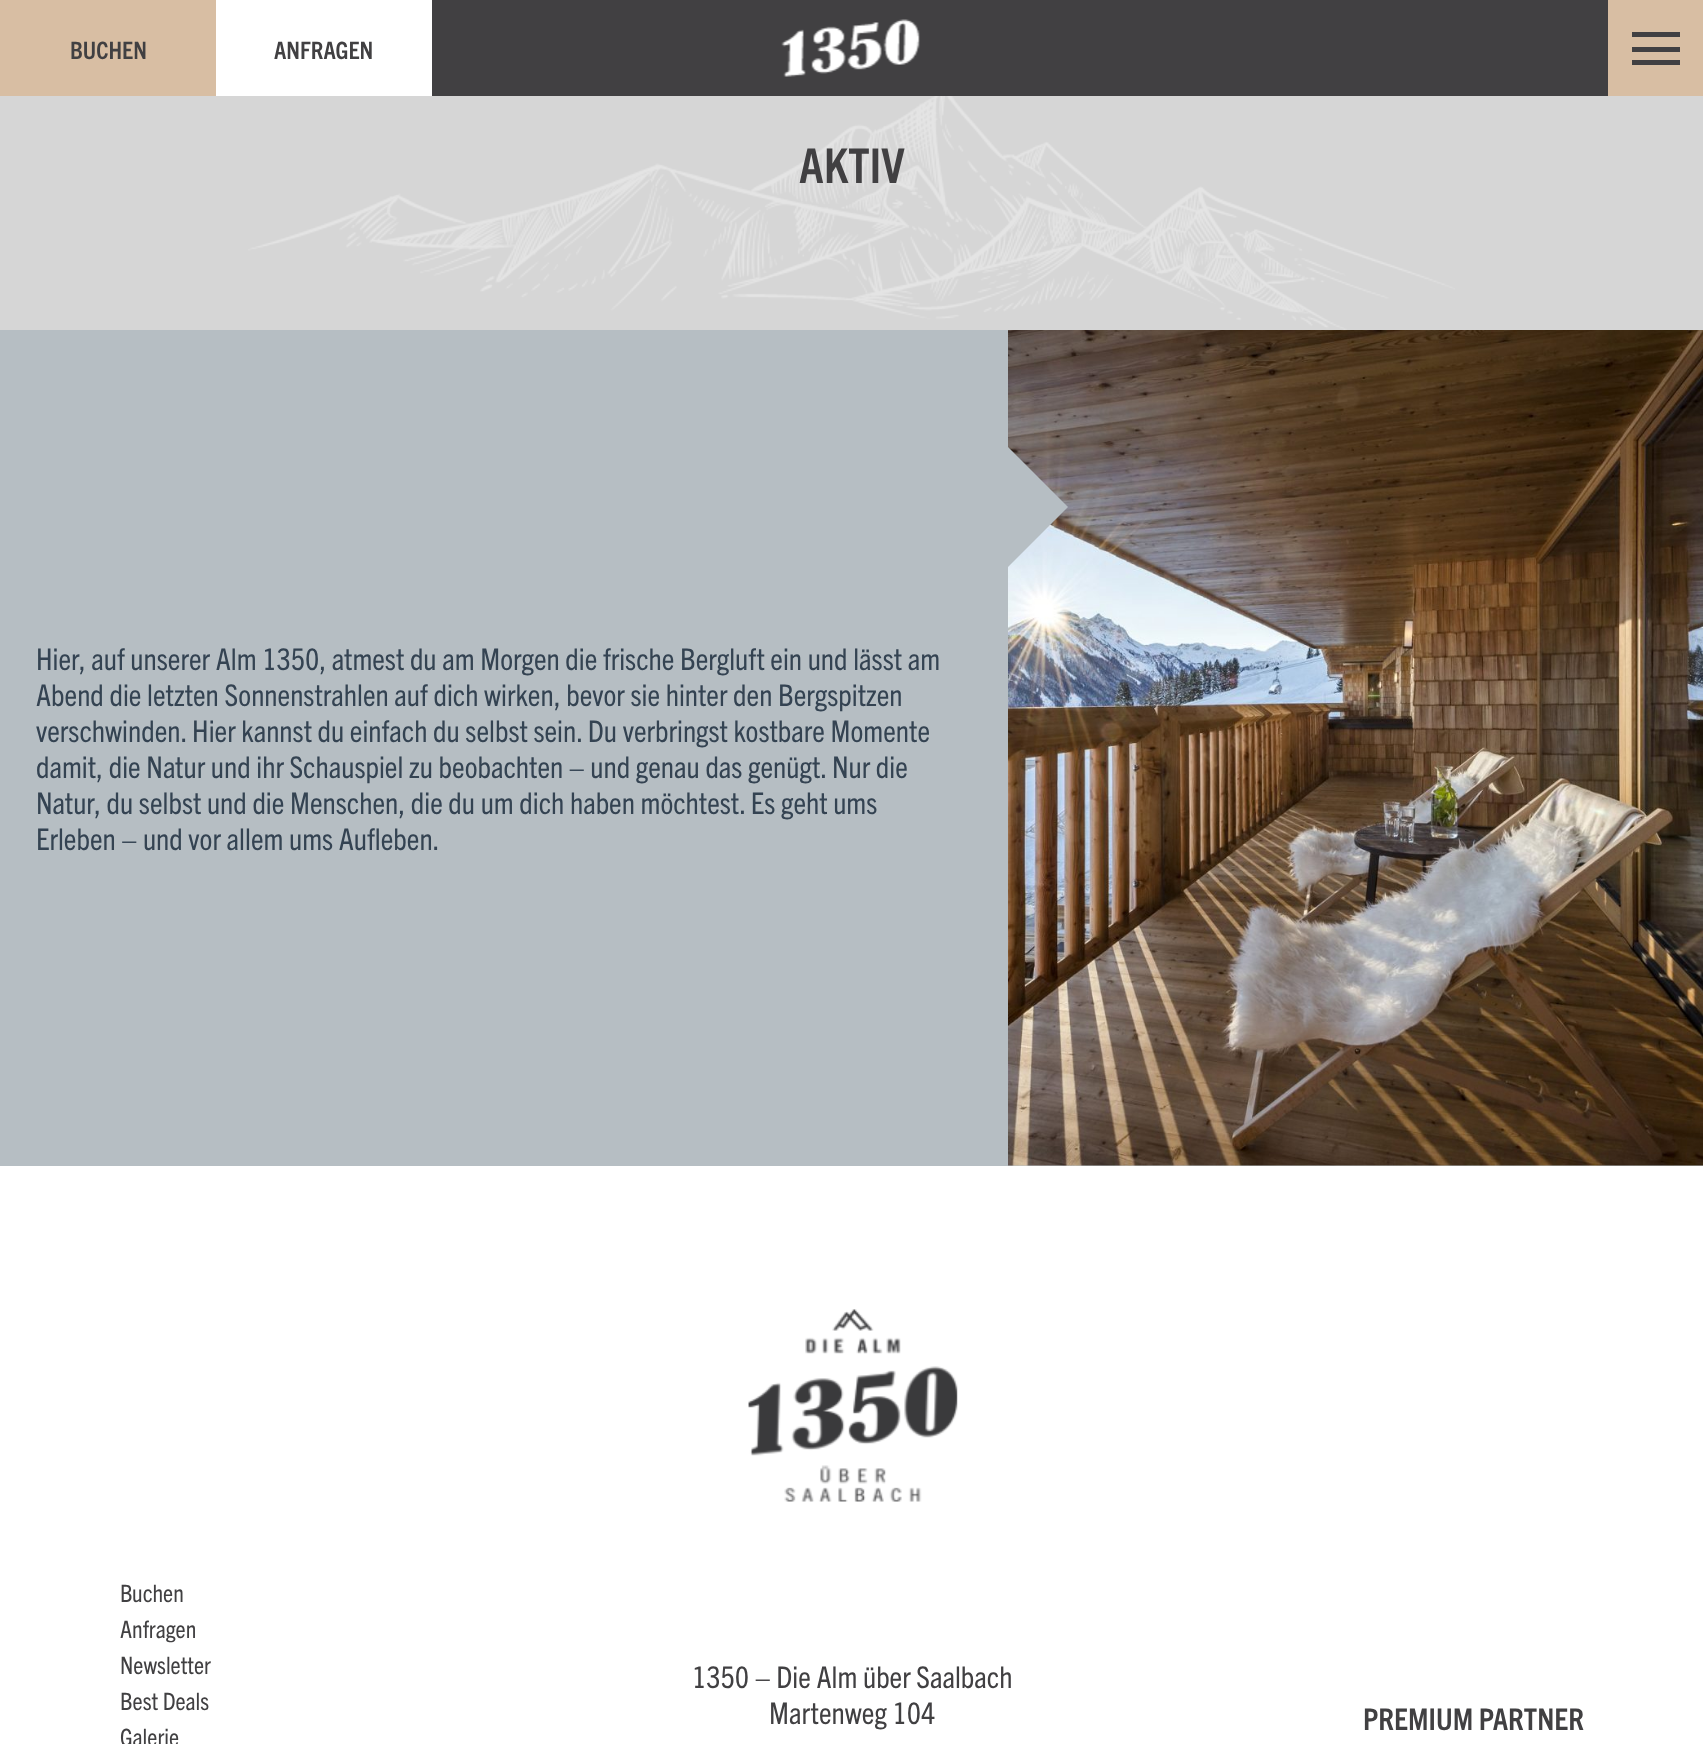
<svg xmlns="http://www.w3.org/2000/svg" width="1703" height="1744">
<style>
.a{font:bold 24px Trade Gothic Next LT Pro;fill:#414042}
.b{font:bold 48px Trade Gothic Next LT Pro;fill:#414042}
.c{font:30px Trade Gothic Next LT Pro;fill:#344352}
.d{font:24px Trade Gothic Next LT Pro;fill:#414042}
.e{font:30px Trade Gothic Next LT Pro;fill:#414042}
.f{font:bold 30px Trade Gothic Next LT Pro;fill:#414042}
</style>
<rect width="100%" height="100%" fill="#fff"/>
<path fill="#d8bea3" d="M0 0h216v96H0z"/>
<path fill="#414042" d="M432 0h1176v96H432z"/>
<image href="1.png" x="781" y="19" width="139" height="58"/>
<path fill="#d8bea3" d="M1608 0h95v96H1608z"/>
<path fill="#414042" d="M1632 32h48v5H1632z"/>
<path fill="#414042" d="M1632 47h48v5H1632z"/>
<path fill="#414042" d="M1632 60h48v5H1632z"/>
<path fill="#d6d6d6" d="M0 96h1703v234H0z"/>
<image href="2.png" x="248" y="96" width="1207" height="234"/>
<path fill="#b6bec3" d="M0 330h1703v836H0z"/>
<image href="3.png" x="1008" y="330" width="695" height="836"/>
<path fill="#b6bec3" d="M996 579v-144l72 72z"/>
<image href="4.png" x="748" y="1309" width="210" height="193"/>
<text class="a" x="70" y="59">BUCHEN</text>
<text class="a" x="274" y="59">ANFRAGEN</text>
<text class="b" x="799" y="183">AKTIV</text>
<text class="c" x="36" y="670">Hier, auf unserer Alm 1350, atmest du am Morgen die frische Bergluft ein und lässt am</text>
<text class="c" x="36" y="706">Abend die letzten Sonnenstrahlen auf dich wirken, bevor sie hinter den Bergspitzen</text>
<text class="c" x="36" y="742">verschwinden. Hier kannst du einfach du selbst sein. Du verbringst kostbare Momente</text>
<text class="c" x="36" y="778">damit, die Natur und ihr Schauspiel zu beobachten – und genau das genügt. Nur die</text>
<text class="c" x="36" y="814">Natur, du selbst und die Menschen, die du um dich haben möchtest. Es geht ums</text>
<text class="c" x="36" y="850">Erleben – und vor allem ums Aufleben.</text>
<text class="d" x="120" y="1602">Buchen</text>
<text class="d" x="120" y="1638">Anfragen</text>
<text class="d" x="120" y="1674">Newsletter</text>
<text class="d" x="120" y="1710">Best Deals</text>
<text class="d" x="120" y="1746">Galerie</text>
<text class="e" x="692" y="1688">1350 – Die Alm über Saalbach</text>
<text class="e" x="769" y="1724">Martenweg 104</text>
<text class="f" x="1363" y="1730">PREMIUM PARTNER</text>
</svg>
